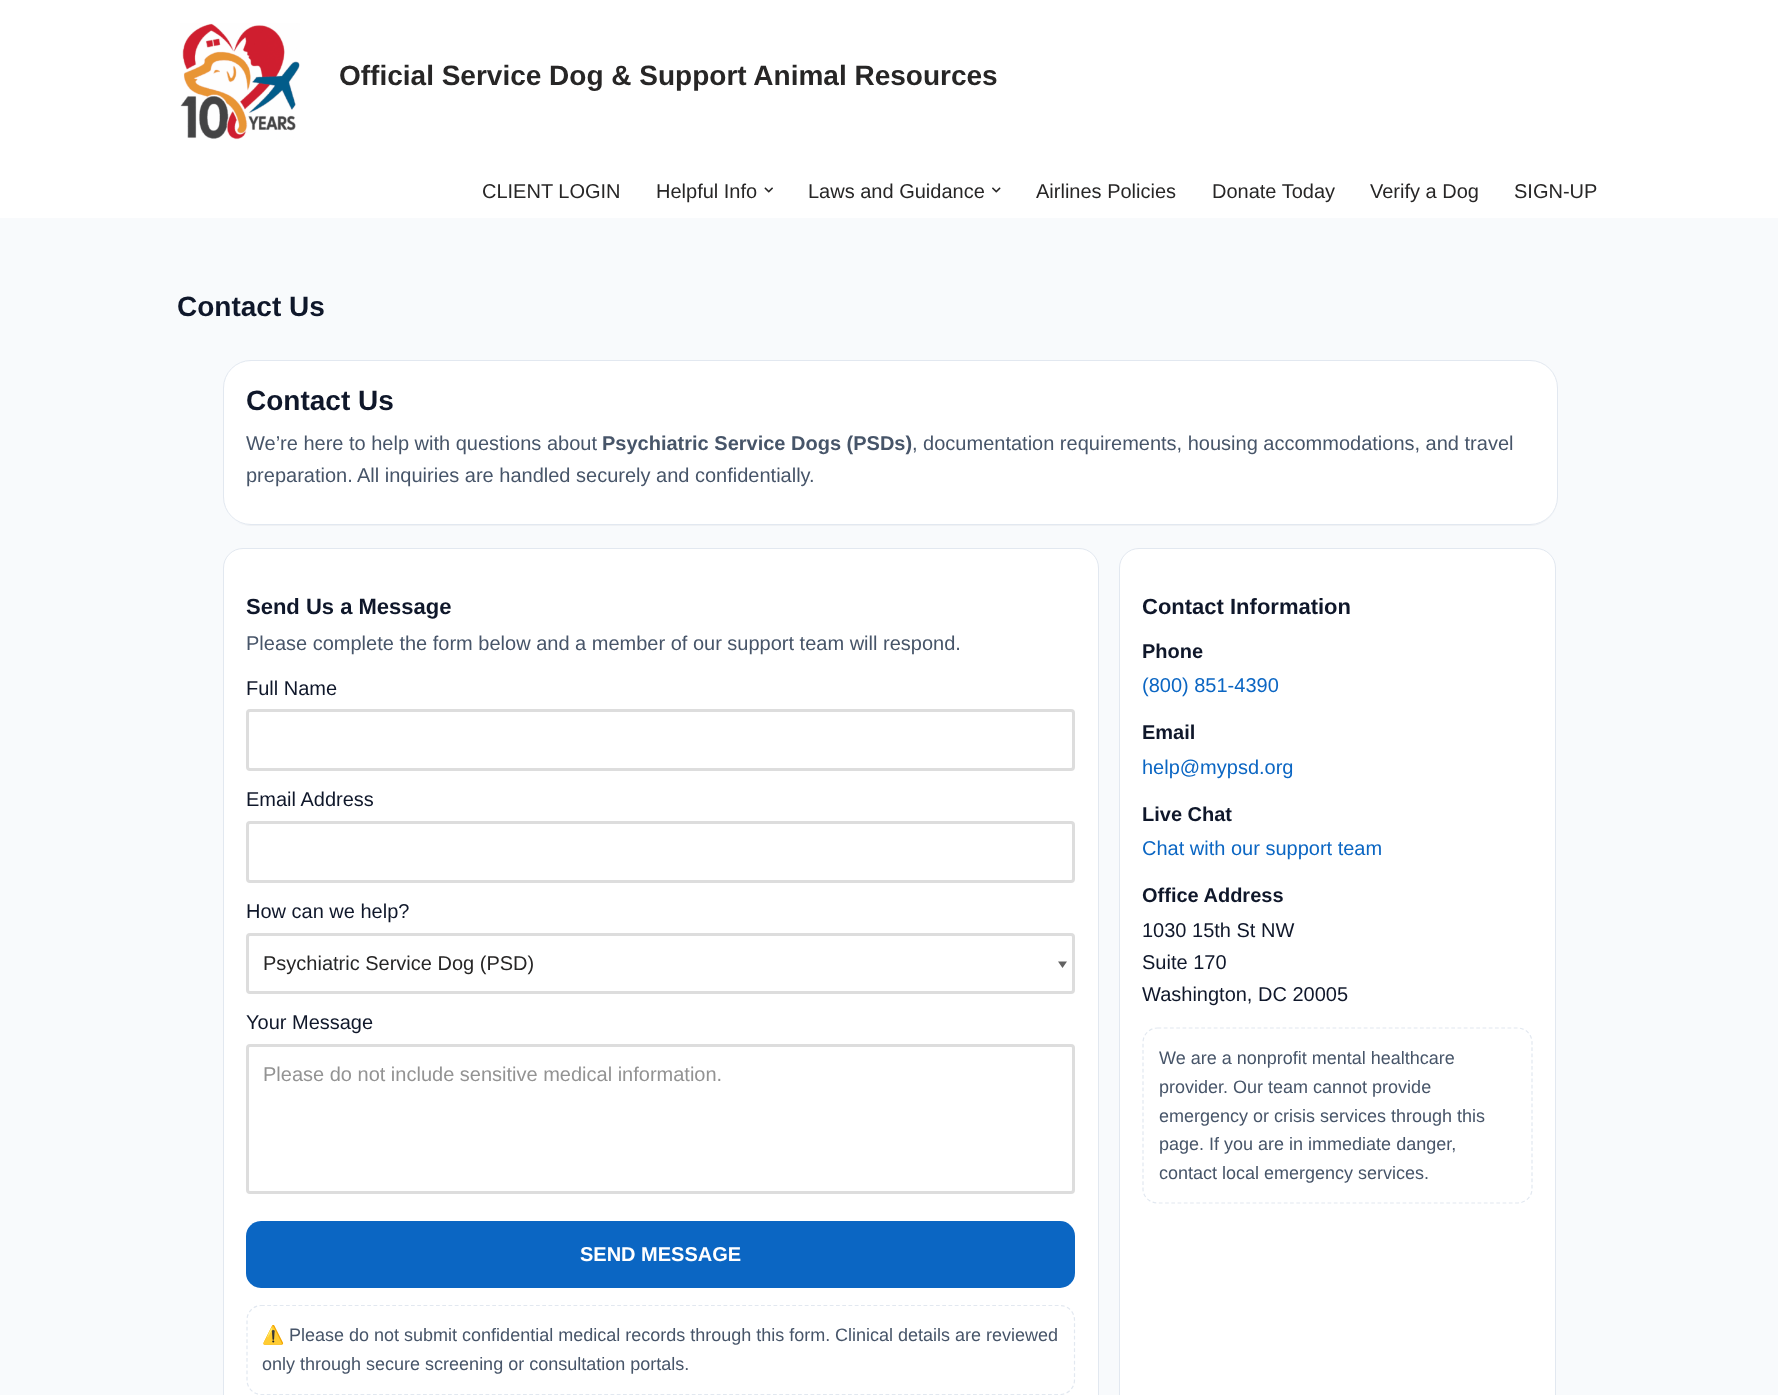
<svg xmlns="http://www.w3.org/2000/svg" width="1778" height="1395">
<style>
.a{font:bold 28px Liberation Sans;fill:#272626}
.b{font:20px Liberation Sans;fill:#272626}
.c{font:bold 28px Liberation Sans;fill:#0f172a}
.d{font:20px Liberation Sans;fill:#475569}
.e{font:bold 20px Liberation Sans;fill:#475569}
.f{font:bold 22px Liberation Sans;fill:#0f172a}
.g{font:20px Liberation Sans;fill:#0f172a}
.h{font:20px Liberation Sans;fill:#939393}
.i{font:bold 20px Liberation Sans;fill:#fff}
.j{font:18px Noto Color Emoji;fill:#475569}
.k{font:18px Liberation Sans;fill:#475569}
.l{font:bold 20px Liberation Sans;fill:#0f172a}
.m{font:20px Liberation Sans;fill:#0b66c3}
</style>
<rect width="100%" height="100%" fill="#f8fafc"/>
<path fill="#fff" d="M0 0h1778v218H0z"/>
<image href="1.png" x="180" y="23" width="120" height="117"/>
<image href="2.png" x="764" y="187" width="9" height="6"/>
<image href="3.png" x="992" y="187" width="9" height="6"/>
<path fill="#eff1f4" d="M228 514c5 7 14 12 23 12h1279c15 0 28-13 28-28v-109c0-4-1-7-2-10c1 3 2 6 2 9v110c0 15-13 27-28 27h-1280c-9 0-17-4-22-11z"/>
<rect fill="#fff" stroke="#e2e8f0" x="223.5" y="360.5" width="1334" height="164" rx="27.5"/>
<rect fill="#fff" stroke="#e2e8f0" x="223.5" y="548.5" width="875" height="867" rx="19.5"/>
<rect fill="none" stroke="#ddd" stroke-width="3" x="247.5" y="710.5" width="826" height="59" rx="2.5"/>
<rect fill="none" stroke="#ddd" stroke-width="3" x="247.5" y="822.5" width="826" height="59" rx="2.5"/>
<path fill="#626262" d="M1067 961.5l-4.5 6.5l-4.5-6.5z"/>
<rect fill="none" stroke="#ddd" stroke-width="3" x="247.5" y="934.5" width="826" height="58" rx="2.5"/>
<rect fill="none" stroke="#ddd" stroke-width="3" x="247.5" y="1045.5" width="826" height="147" rx="2.5"/>
<rect fill="#0b66c3" x="246" y="1221" width="829" height="67" rx="15"/>
<path fill="none" stroke="#e2e8f0" stroke-width="1.2" stroke-dasharray="3.75 2.5" d="M261 1305.5h799c8 0 14.5 6.5 14.5 14.5v60c0 8-6.5 14.5-14.5 14.5h-799c-7.5 0-14-6.5-14-14.5v-60c0-8 6.5-14.5 14-14.5z"/>
<rect fill="#fff" stroke="#e2e8f0" x="1119.5" y="548.5" width="436" height="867" rx="19.5"/>
<path fill="none" stroke="#e2e8f0" stroke-width="1.2" stroke-dasharray="3.75 2.5" d="M1157.5 1028h360c8 0 14.5 6.5 14.5 14.5v146.5c0 7.5-6.5 14-14.5 14h-360c-8 0-14.5-6.5-14.5-14v-146.5c0-8 6.5-14.5 14.5-14.5z"/>
<text class="a" x="339" y="85">Official Service Dog &amp; Support Animal Resources</text>
<text class="b" x="482" y="198">CLIENT LOGIN</text>
<text class="b" x="656" y="198">Helpful Info</text>
<text class="b" x="808" y="198">Laws and Guidance</text>
<text class="b" x="1036" y="198">Airlines Policies</text>
<text class="b" x="1212" y="198">Donate Today</text>
<text class="b" x="1370" y="198">Verify a Dog</text>
<text class="b" x="1514" y="198">SIGN-UP</text>
<text class="c" x="177" y="316">Contact Us</text>
<text class="c" x="246" y="410">Contact Us</text>
<text class="d" x="246" y="450">We’re here to help with questions about</text>
<text class="e" x="602" y="450">Psychiatric Service Dogs (PSDs)</text>
<text class="d" x="912" y="450">, documentation requirements, housing accommodations, and travel</text>
<text class="d" x="246" y="482">preparation.</text>
<text class="d" x="357" y="482">All inquiries are handled securely and confidentially.</text>
<text class="f" x="246" y="614">Send Us a Message</text>
<text class="d" x="246" y="650">Please complete the form below and a member of our support team will respond.</text>
<text class="g" x="246" y="695">Full Name</text>
<text class="g" x="246" y="806">Email Address</text>
<text class="g" x="246" y="918">How can we help?</text>
<text class="b" x="263" y="970">Psychiatric Service Dog (PSD)</text>
<text class="g" x="246" y="1029">Your Message</text>
<text class="h" x="263" y="1081">Please do not include sensitive medical information.</text>
<text class="i" x="580" y="1261">SEND MESSAGE</text>
<text class="j" x="262" y="1341">⚠️</text>
<text class="k" x="289" y="1341">Please do not submit confidential medical records through this form.</text>
<text class="k" x="835" y="1341">Clinical details are reviewed</text>
<text class="k" x="262" y="1370">only through secure screening or consultation portals.</text>
<text class="f" x="1142" y="614">Contact Information</text>
<text class="l" x="1142" y="658">Phone</text>
<text class="m" x="1142" y="692">(800) 851-4390</text>
<text class="l" x="1142" y="739">Email</text>
<text class="m" x="1142" y="774">help@mypsd.org</text>
<text class="l" x="1142" y="821">Live Chat</text>
<text class="m" x="1142" y="855">Chat with our support team</text>
<text class="l" x="1142" y="902">Office Address</text>
<text class="g" x="1142" y="937">1030 15th St NW</text>
<text class="g" x="1142" y="969">Suite 170</text>
<text class="g" x="1142" y="1001">Washington, DC 20005</text>
<text class="k" x="1159" y="1064">We are a nonprofit mental healthcare</text>
<text class="k" x="1159" y="1093">provider. Our team cannot provide</text>
<text class="k" x="1159" y="1122">emergency or crisis services through this</text>
<text class="k" x="1159" y="1150">page. If you are in immediate danger,</text>
<text class="k" x="1159" y="1179">contact local emergency services.</text>
</svg>
